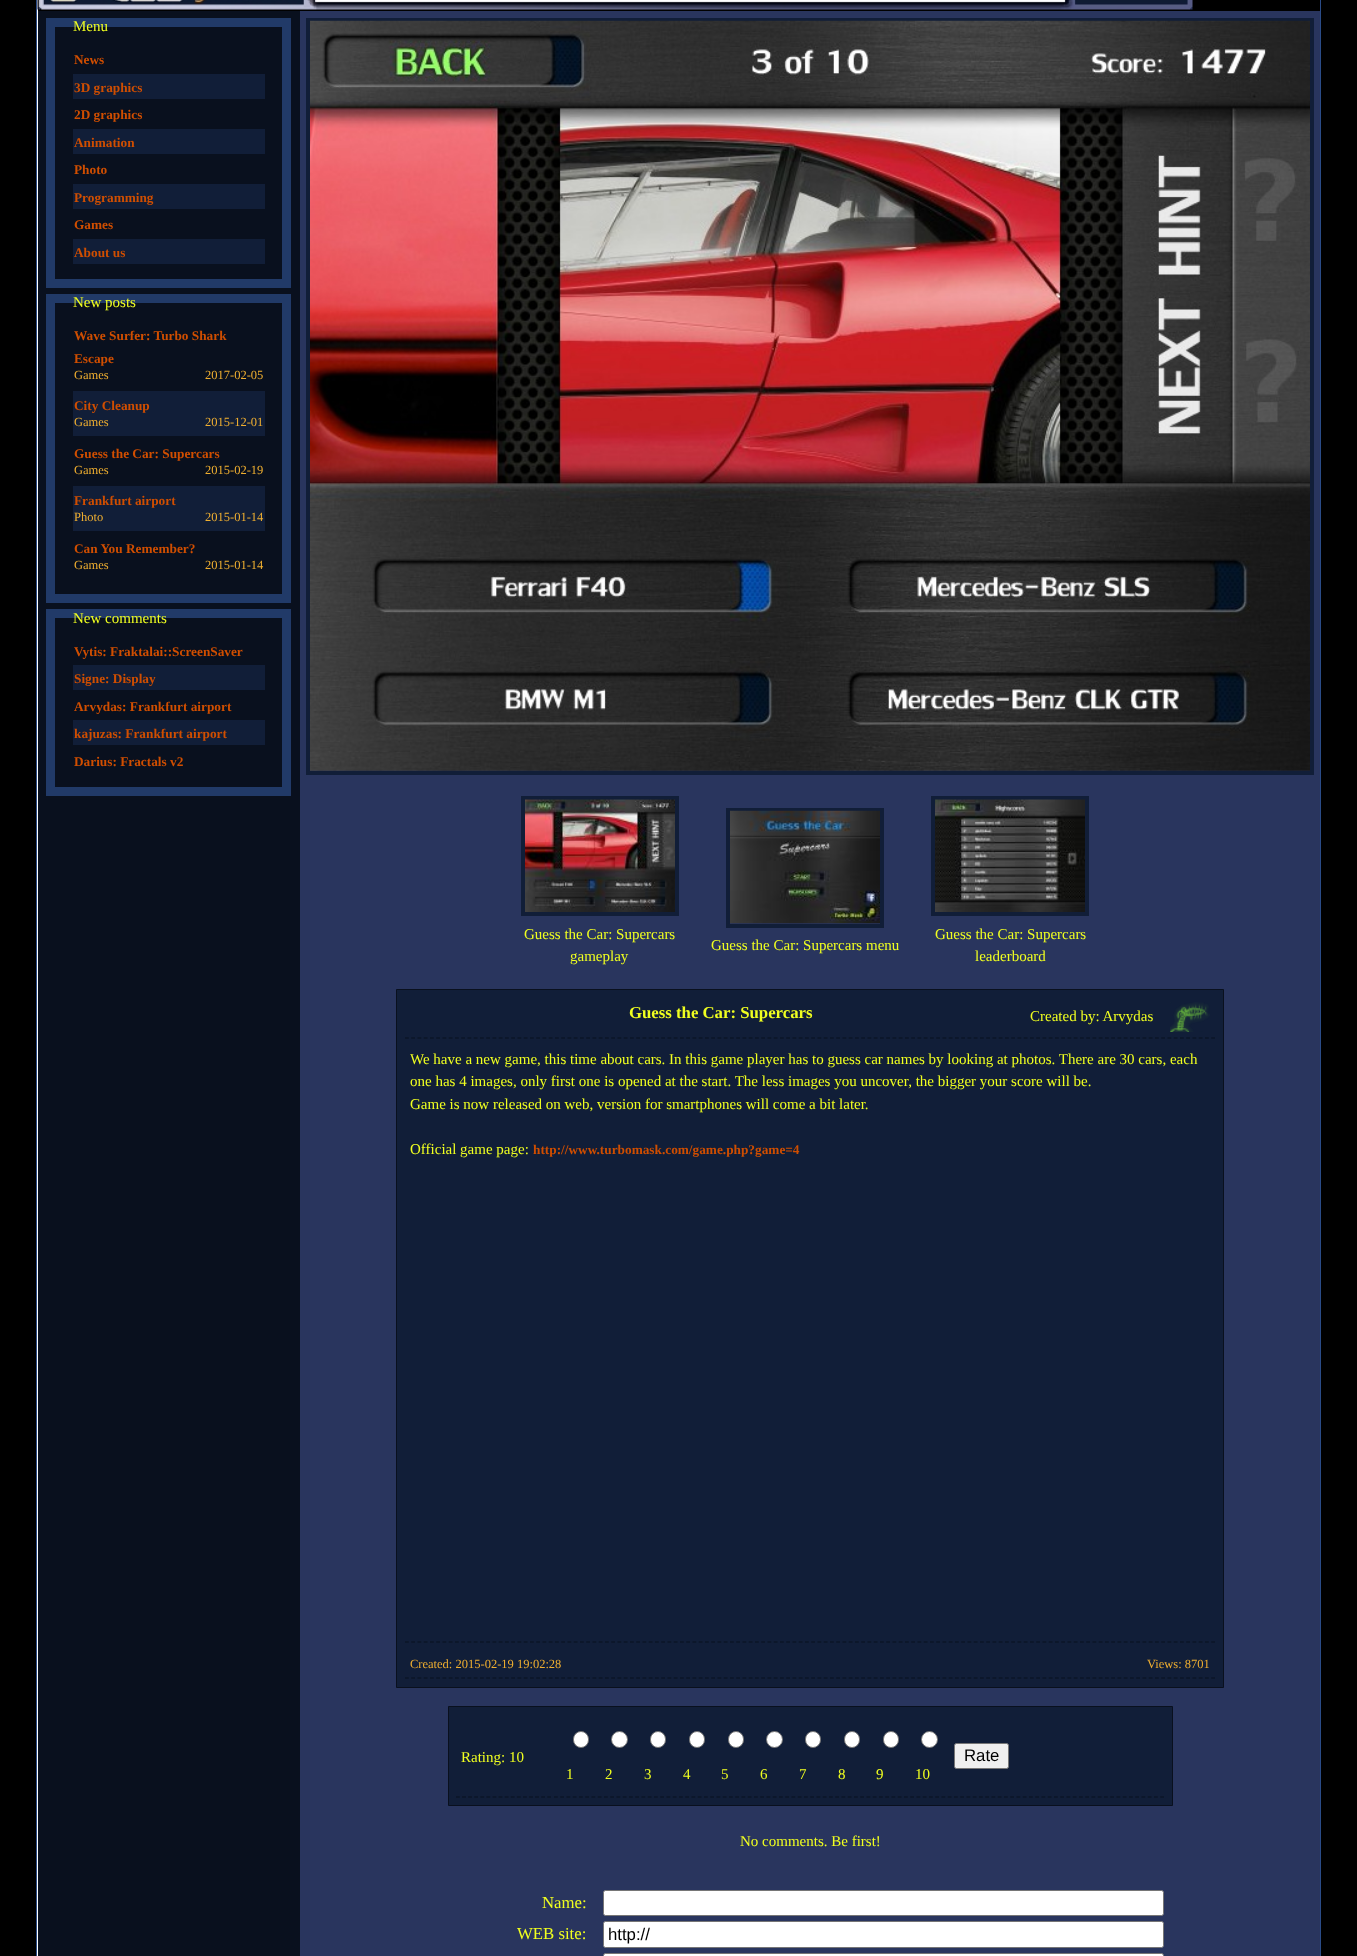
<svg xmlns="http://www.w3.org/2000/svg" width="1357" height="1956">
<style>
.a{font:15px Liberation Serif;fill:#f0ff20}
.b{font:bold 13.3px Liberation Serif;fill:#d04e00}
.c{font:12.5px Liberation Serif;fill:#f0af30}
.d{font:bold 16.75px Liberation Serif;fill:#f0ff20}
.e{font:16.75px Liberation Sans;fill:#000}
.f{font:16.75px Liberation Serif;fill:#f0ff20}
</style>
<rect width="100%" height="100%" fill="#000"/>
<path fill="#fff" d="M37 0h1v1956H37z"/>
<path fill="#2a4b87" d="M1320 0h1v1956H1320z"/>
<path fill="#2a4b87" d="M36 0h1v1956H36z"/>
<image href="1.png" x="37" y="0" width="1156" height="10"/>
<path fill="#09101e" d="M38 11h262v1945H38z"/>
<path fill="none" stroke="#213a68" stroke-width="9" d="M50.5 22.5h236v261H50.5z"/>
<path fill="#111e38" d="M73 74h192v25H73z"/>
<path fill="#111e38" d="M73 129h192v25H73z"/>
<path fill="#111e38" d="M73 184h192v25H73z"/>
<path fill="#111e38" d="M73 239h192v25H73z"/>
<path fill="none" stroke="#213a68" stroke-width="9" d="M50.5 298.5h236v300H50.5z"/>
<path fill="#111e38" d="M73 391h192v45H73z"/>
<path fill="#111e38" d="M73 486h192v45H73z"/>
<path fill="none" stroke="#213a68" stroke-width="9" d="M50.5 613.5h236v178H50.5z"/>
<path fill="#111e38" d="M73 665h192v25H73z"/>
<path fill="#111e38" d="M73 720h192v25H73z"/>
<path fill="#29355e" d="M300 11h1020v1945H300z"/>
<path fill="none" stroke="#111e38" stroke-width="4" d="M308 20h1004v753H308z"/>
<image href="2.png" x="310" y="20" width="1000" height="751"/>
<path fill="none" stroke="#111e38" stroke-width="4" d="M523 798h154v116H523z"/>
<image href="3.png" x="525" y="799" width="150" height="113"/>
<path fill="none" stroke="#111e38" stroke-width="4" d="M728 810h154v116H728z"/>
<image href="4.png" x="730" y="810" width="150" height="114"/>
<path fill="none" stroke="#111e38" stroke-width="4" d="M933 798h154v116H933z"/>
<image href="5.png" x="935" y="799" width="150" height="113"/>
<path fill="#111e38" stroke="#09101e" d="M396.5 989.5h827v698H396.5z"/>
<path fill="none" stroke="#09101e" stroke-width="1.2" stroke-dasharray="3.75 2.5" d="M405 1038h810"/>
<image href="6.png" x="1170" y="1002" width="40" height="30"/>
<path fill="none" stroke="#09101e" stroke-width="1.2" stroke-dasharray="3.75 2.5" d="M405 1642h810"/>
<path fill="none" stroke="#09101e" stroke-width="1.2" stroke-dasharray="3.75 2.5" d="M405 1678h810"/>
<path fill="#111e38" stroke="#09101e" d="M448.5 1706.5h724v99H448.5z"/>
<path fill="none" stroke="#09101e" stroke-width="1.2" stroke-dasharray="3.75 2.34" d="M456 1797h95"/>
<path fill="none" stroke="#09101e" stroke-width="1.2" stroke-dasharray="3.75 2.5" d="M554 1797h610"/>
<rect fill="#fff" stroke="#767676" x="573.5" y="1731.5" width="15" height="16" rx="7.5"/>
<circle fill="#fff" stroke="#767676" cx="619.5" cy="1739.5" r="8"/>
<rect fill="#fff" stroke="#767676" x="650.5" y="1731.5" width="15" height="16" rx="7.5"/>
<rect fill="#fff" stroke="#767676" x="689.5" y="1731.5" width="15" height="16" rx="7.5"/>
<rect fill="#fff" stroke="#767676" x="728.5" y="1731.5" width="15" height="16" rx="7.5"/>
<circle fill="#fff" stroke="#767676" cx="774.5" cy="1739.5" r="8"/>
<rect fill="#fff" stroke="#767676" x="805.5" y="1731.5" width="15" height="16" rx="7.5"/>
<rect fill="#fff" stroke="#767676" x="844.5" y="1731.5" width="15" height="16" rx="7.5"/>
<rect fill="#fff" stroke="#767676" x="883.5" y="1731.5" width="15" height="16" rx="7.5"/>
<circle fill="#fff" stroke="#767676" cx="929.5" cy="1739.5" r="8"/>
<rect fill="#efefef" stroke="#767676" x="954.5" y="1743.5" width="54" height="25" rx="2"/>
<rect fill="#fff" stroke="#767676" x="603.5" y="1890.5" width="560" height="25" rx="2"/>
<rect fill="#fff" stroke="#767676" x="603.5" y="1921.5" width="560" height="26" rx="2"/>
<rect fill="#fff" stroke="#767676" x="603.5" y="1953.5" width="560" height="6" rx="2"/>
<text class="a" x="73" y="31">Menu</text>
<text class="b" x="74" y="64">News</text>
<text class="b" x="74" y="92">3D graphics</text>
<text class="b" x="74" y="119">2D graphics</text>
<text class="b" x="74" y="147">Animation</text>
<text class="b" x="74" y="174">Photo</text>
<text class="b" x="74" y="202">Programming</text>
<text class="b" x="74" y="229">Games</text>
<text class="b" x="74" y="257">About us</text>
<text class="a" x="73" y="307">New posts</text>
<text class="b" x="74" y="340">Wave Surfer: Turbo Shark</text>
<text class="b" x="74" y="363">Escape</text>
<text class="c" x="74" y="379">Games</text>
<text class="c" x="205" y="379">2017-02-05</text>
<text class="b" x="74" y="410">City Cleanup</text>
<text class="c" x="74" y="426">Games</text>
<text class="c" x="205" y="426">2015-12-01</text>
<text class="b" x="74" y="458">Guess the Car: Supercars</text>
<text class="c" x="74" y="474">Games</text>
<text class="c" x="205" y="474">2015-02-19</text>
<text class="b" x="74" y="505">Frankfurt airport</text>
<text class="c" x="74" y="521">Photo</text>
<text class="c" x="205" y="521">2015-01-14</text>
<text class="b" x="74" y="553">Can You Remember?</text>
<text class="c" x="74" y="569">Games</text>
<text class="c" x="205" y="569">2015-01-14</text>
<text class="a" x="73" y="623">New comments</text>
<text class="b" x="74" y="656">Vytis: Fraktalai::ScreenSaver</text>
<text class="b" x="74" y="683">Signe: Display</text>
<text class="b" x="74" y="711">Arvydas: Frankfurt airport</text>
<text class="b" x="74" y="738">kajuzas: Frankfurt airport</text>
<text class="b" x="74" y="766">Darius: Fractals v2</text>
<text class="a" x="524" y="939">Guess the Car: Supercars</text>
<text class="a" x="570" y="961">gameplay</text>
<text class="a" x="711" y="950">Guess the Car: Supercars menu</text>
<text class="a" x="935" y="939">Guess the Car: Supercars</text>
<text class="a" x="975" y="961">leaderboard</text>
<text class="d" x="629" y="1018">Guess the Car: Supercars</text>
<text class="a" x="1030" y="1021">Created by: Arvydas</text>
<text class="a" x="410" y="1064">We have a new game, this time about cars. In this game player has to guess car names by looking at photos. There are 30 cars, each</text>
<text class="a" x="410" y="1086">one has 4 images, only first one is opened at the start. The less images you uncover, the bigger your score will be.</text>
<text class="a" x="410" y="1109">Game is now released on web, version for smartphones will come a bit later.</text>
<text class="a" x="410" y="1154">Official game page:</text>
<text class="b" x="533" y="1154">http://www.turbomask.com/game.php?game=4</text>
<text class="c" x="410" y="1668">Created: 2015-02-19 19:02:28</text>
<text class="c" x="1147" y="1668">Views: 8701</text>
<text class="a" x="461" y="1762">Rating: 10</text>
<text class="e" x="964" y="1761">Rate</text>
<text class="a" x="566" y="1779">1</text>
<text class="a" x="605" y="1779">2</text>
<text class="a" x="644" y="1779">3</text>
<text class="a" x="683" y="1779">4</text>
<text class="a" x="721" y="1779">5</text>
<text class="a" x="760" y="1779">6</text>
<text class="a" x="799" y="1779">7</text>
<text class="a" x="838" y="1779">8</text>
<text class="a" x="876" y="1779">9</text>
<text class="a" x="915" y="1779">10</text>
<text class="a" x="740" y="1846">No comments. Be first!</text>
<text class="f" x="542" y="1908">Name:</text>
<text class="f" x="517" y="1939">WEB site:</text>
<text class="e" x="608" y="1940">http://</text>
</svg>
